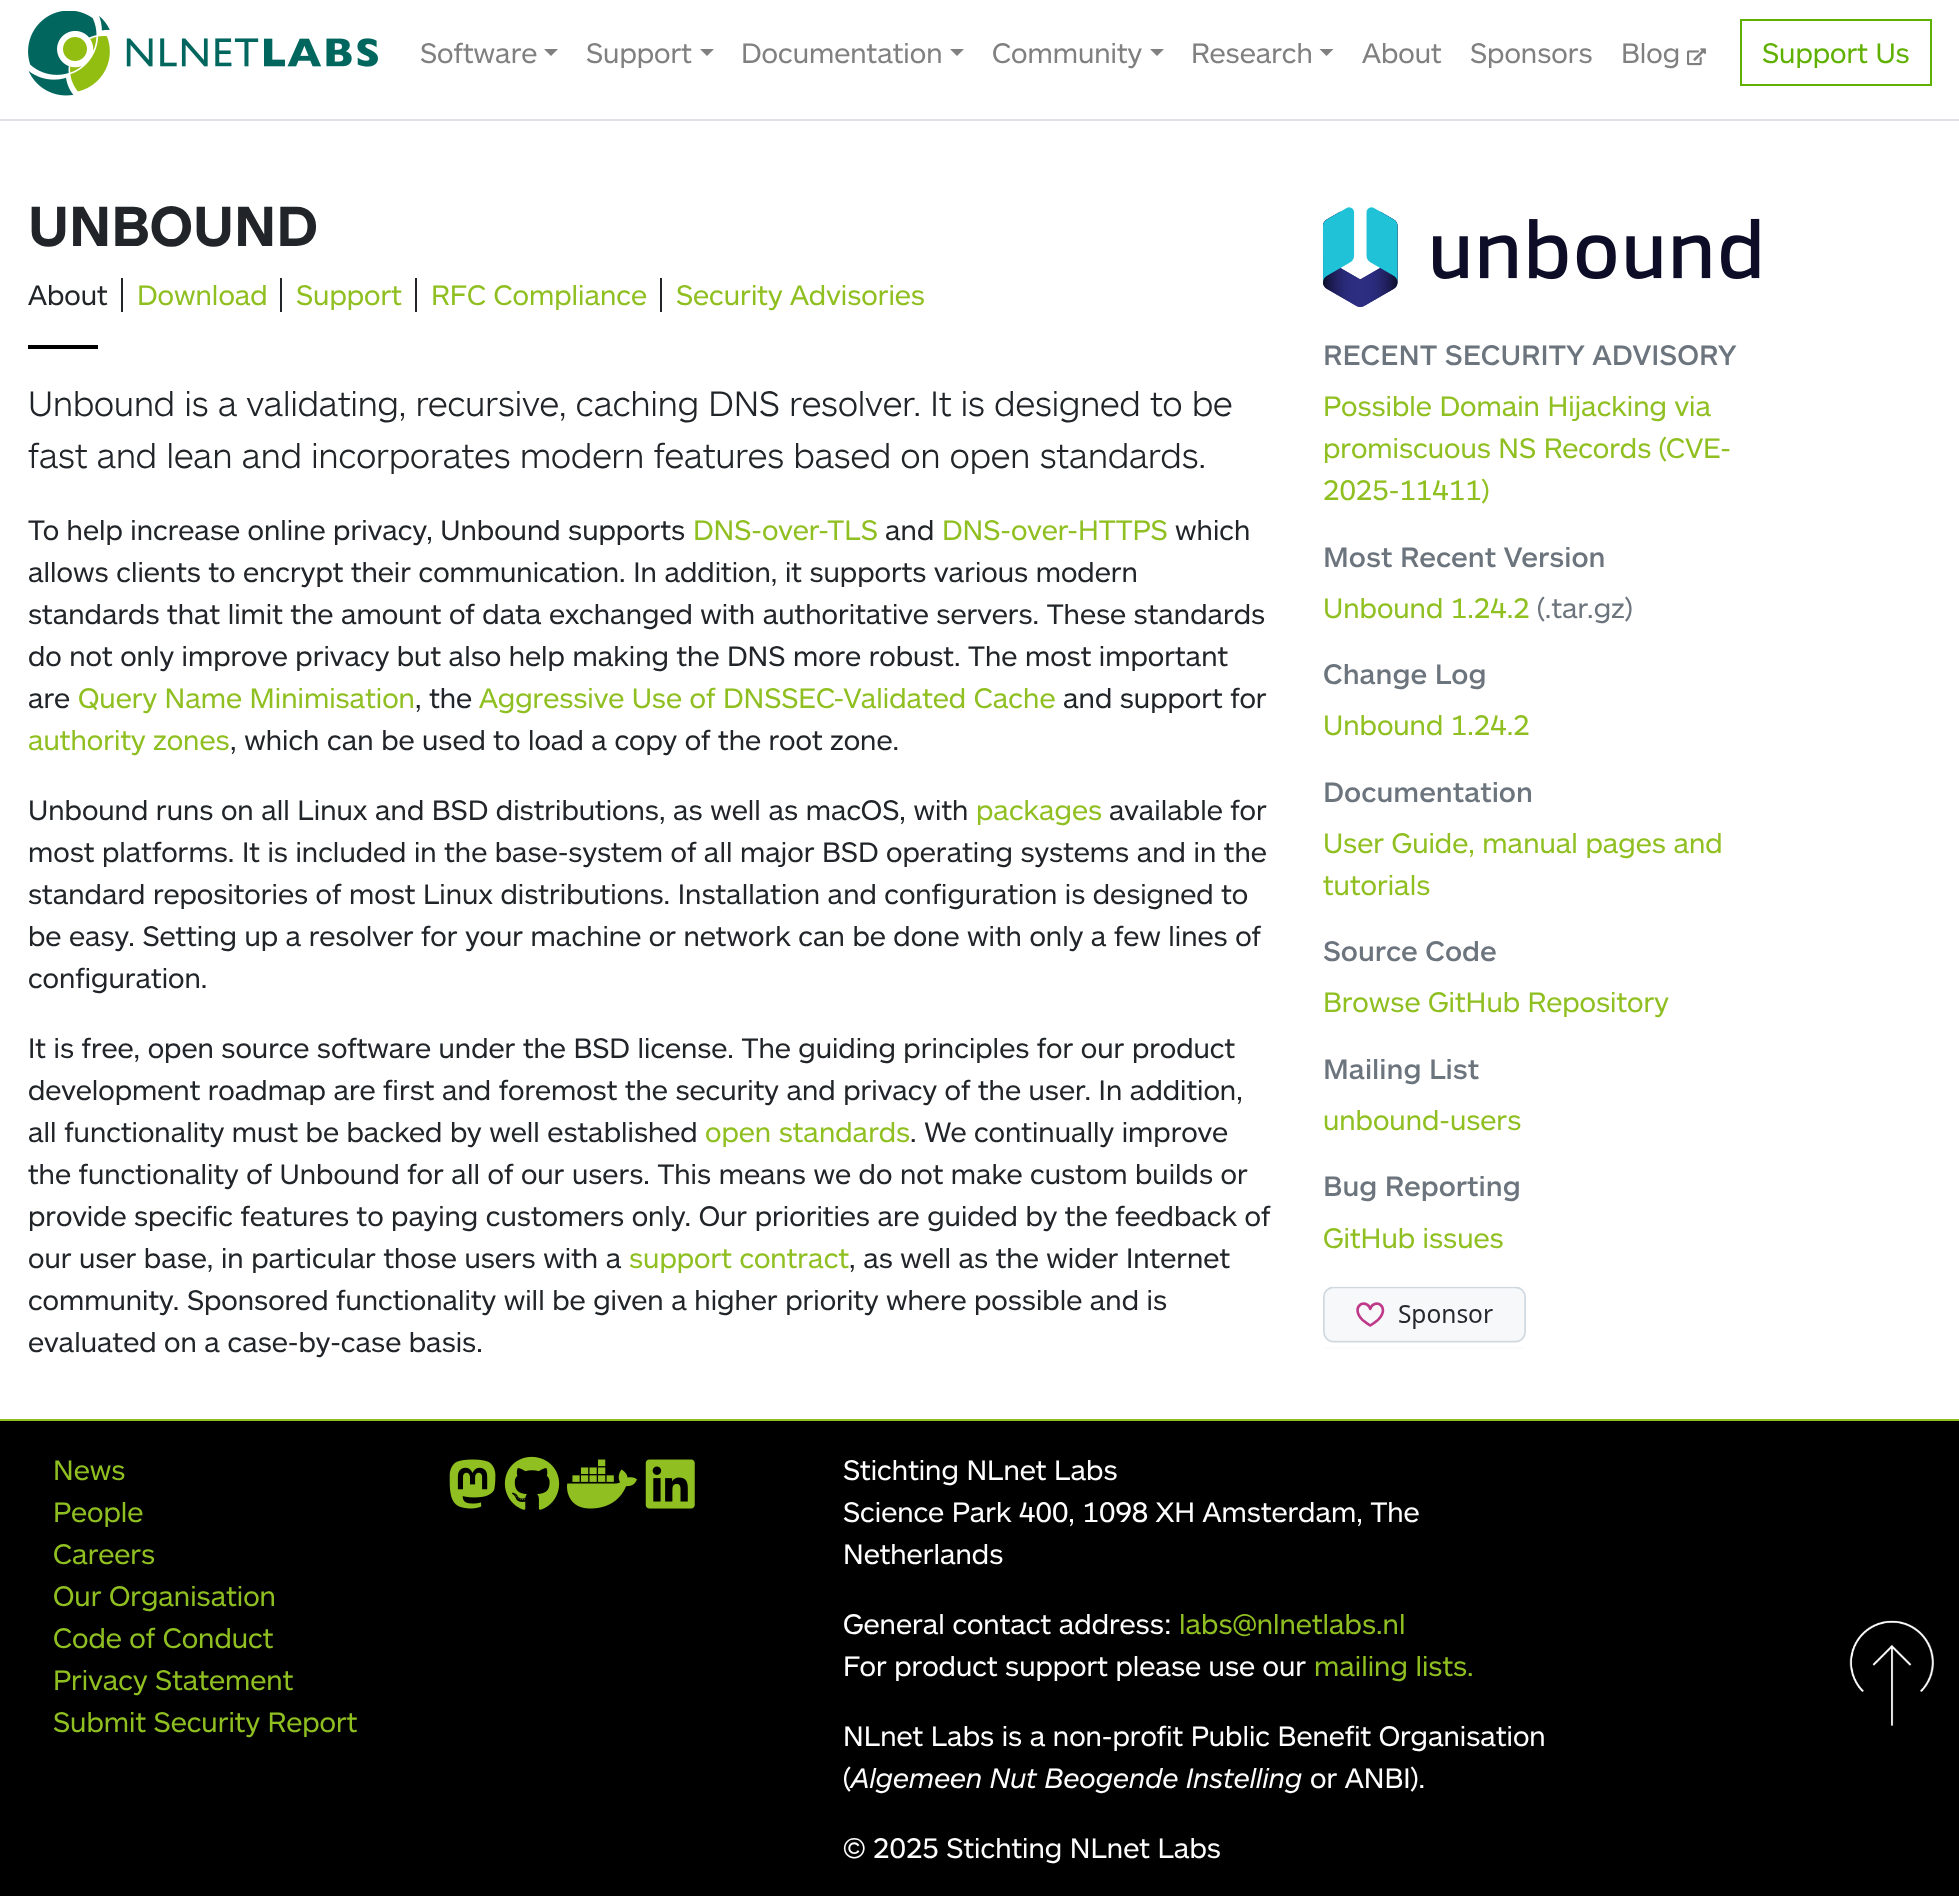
<svg xmlns="http://www.w3.org/2000/svg" width="1959" height="1896">
<style>
.a{font:28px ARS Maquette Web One;fill:#808080}
.b{font:28px ARS Maquette Web One;fill:#60b000}
.c{font:bold 56px ARS Maquette Web One;fill:#212529}
.d{font:28px ARS Maquette Web One;fill:#212529}
.e{font:28px ARS Maquette Web One;fill:#8fbf21}
.f{font:300 35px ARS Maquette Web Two;fill:#212529}
.g{font:bold 28px ARS Maquette Web Two;fill:#6c757d}
.h{font:28px ARS Maquette Web One;fill:#6c757d}
.i{font:28px ARS Maquette Web One;fill:#fff}
.j{font:italic 28px ARS Maquette Web One;fill:#fff}
</style>
<rect width="100%" height="100%" fill="#fff"/>
<path fill="#dee2e6" d="M0 119h1959v2H0z"/>
<image href="1.png" x="28" y="11" width="350" height="85"/>
<path fill="#808080" d="M544 49h14l-7 7z"/>
<path fill="#808080" d="M700 49h14l-7 7z"/>
<path fill="#808080" d="M950 49h14l-7 7z"/>
<path fill="#808080" d="M1150 49h14l-7 7z"/>
<path fill="#808080" d="M1319.5 49h14l-7 7z"/>
<image href="2.png" x="1687" y="48" width="19" height="18"/>
<path fill="none" stroke="#60b000" stroke-width="2" d="M1741 20h190v65H1741z"/>
<path fill="#212529" d="M121 278h2v34H121z"/>
<path fill="#212529" d="M280 278h2v34H280z"/>
<path fill="#212529" d="M415 278h2v34H415z"/>
<path fill="#212529" d="M660 278h2v34H660z"/>
<path fill="#000" d="M28 345h70v4H28z"/>
<image href="3.png" x="1323" y="207" width="437" height="100"/>
<image href="4.png" x="1323" y="1286" width="203" height="63"/>
<path fill="#000" d="M0 1421h1959v475H0z"/>
<path fill="#8fbf21" d="M0 1419h1959v2H0z"/>
<image href="5.png" x="449" y="1459" width="47" height="50"/>
<image href="6.png" x="504" y="1456" width="56" height="54"/>
<image href="7.png" x="567" y="1459" width="70" height="50"/>
<image href="8.png" x="645" y="1459" width="50" height="50"/>
<image href="9.png" x="1849" y="1620" width="85" height="106"/>
<text class="a" x="420" y="63">Software</text>
<text class="a" x="586" y="63">Support</text>
<text class="a" x="741" y="63">Documentation</text>
<text class="a" x="992" y="63">Community</text>
<text class="a" x="1191" y="63">Research</text>
<text class="a" x="1362" y="63">About</text>
<text class="a" x="1470" y="63">Sponsors</text>
<text class="a" x="1621" y="63">Blog</text>
<text class="b" x="1762" y="63">Support Us</text>
<text class="c" x="28" y="246">UNBOUND</text>
<text class="d" x="28" y="305">About</text>
<text class="e" x="137" y="305">Download</text>
<text class="e" x="296" y="305">Support</text>
<text class="e" x="431" y="305">RFC Compliance</text>
<text class="e" x="676" y="305">Security Advisories</text>
<text class="f" x="28" y="416">Unbound is a validating, recursive, caching DNS resolver. It is designed to be</text>
<text class="f" x="28" y="468">fast and lean and incorporates modern features based on open standards.</text>
<text class="d" x="28" y="540">To help increase online privacy, Unbound supports</text>
<text class="e" x="693" y="540">DNS-over-TLS</text>
<text class="d" x="885" y="540">and</text>
<text class="e" x="942" y="540">DNS-over-HTTPS</text>
<text class="d" x="1175" y="540">which</text>
<text class="d" x="28" y="582">allows clients to encrypt their communication. In addition, it supports various modern</text>
<text class="d" x="28" y="624">standards that limit the amount of data exchanged with authoritative servers. These standards</text>
<text class="d" x="28" y="666">do not only improve privacy but also help making the DNS more robust. The most important</text>
<text class="d" x="28" y="708">are</text>
<text class="e" x="78" y="708">Query Name Minimisation</text>
<text class="d" x="415" y="708">, the</text>
<text class="e" x="479" y="708">Aggressive Use of DNSSEC-Validated Cache</text>
<text class="d" x="1063" y="708">and support for</text>
<text class="e" x="28" y="750">authority zones</text>
<text class="d" x="230" y="750">, which can be used to load a copy of the root zone.</text>
<text class="d" x="28" y="820">Unbound runs on all Linux and BSD distributions, as well as macOS, with</text>
<text class="e" x="976" y="820">packages</text>
<text class="d" x="1109" y="820">available for</text>
<text class="d" x="28" y="862">most platforms. It is included in the base-system of all major BSD operating systems and in the</text>
<text class="d" x="28" y="904">standard repositories of most Linux distributions. Installation and configuration is designed to</text>
<text class="d" x="28" y="946">be easy. Setting up a resolver for your machine or network can be done with only a few lines of</text>
<text class="d" x="28" y="988">configuration.</text>
<text class="d" x="28" y="1058">It is free, open source software under the BSD license. The guiding principles for our product</text>
<text class="d" x="28" y="1100">development roadmap are first and foremost the security and privacy of the user. In addition,</text>
<text class="d" x="28" y="1142">all functionality must be backed by well established</text>
<text class="e" x="705" y="1142">open standards</text>
<text class="d" x="910" y="1142">. We continually improve</text>
<text class="d" x="28" y="1184">the functionality of Unbound for all of our users. This means we do not make custom builds or</text>
<text class="d" x="28" y="1226">provide specific features to paying customers only. Our priorities are guided by the feedback of</text>
<text class="d" x="28" y="1268">our user base, in particular those users with a</text>
<text class="e" x="629" y="1268">support contract</text>
<text class="d" x="849" y="1268">, as well as the wider Internet</text>
<text class="d" x="28" y="1310">community. Sponsored functionality will be given a higher priority where possible and is</text>
<text class="d" x="28" y="1352">evaluated on a case-by-case basis.</text>
<text class="g" x="1323" y="365">RECENT SECURITY ADVISORY</text>
<text class="e" x="1323" y="416">Possible Domain Hijacking via</text>
<text class="e" x="1323" y="458">promiscuous NS Records (CVE-</text>
<text class="e" x="1323" y="500">2025-11411)</text>
<text class="g" x="1323" y="567">Most Recent Version</text>
<text class="e" x="1323" y="618">Unbound 1.24.2</text>
<text class="h" x="1537" y="618">(.tar.gz)</text>
<text class="g" x="1323" y="684">Change Log</text>
<text class="e" x="1323" y="735">Unbound 1.24.2</text>
<text class="g" x="1323" y="802">Documentation</text>
<text class="e" x="1323" y="853">User Guide, manual pages and</text>
<text class="e" x="1323" y="895">tutorials</text>
<text class="g" x="1323" y="961">Source Code</text>
<text class="e" x="1323" y="1012">Browse GitHub Repository</text>
<text class="g" x="1323" y="1079">Mailing List</text>
<text class="e" x="1323" y="1130">unbound-users</text>
<text class="g" x="1323" y="1196">Bug Reporting</text>
<text class="e" x="1323" y="1248">GitHub issues</text>
<text class="e" x="53" y="1480">News</text>
<text class="e" x="53" y="1522">People</text>
<text class="e" x="53" y="1564">Careers</text>
<text class="e" x="53" y="1606">Our Organisation</text>
<text class="e" x="53" y="1648">Code of Conduct</text>
<text class="e" x="53" y="1690">Privacy Statement</text>
<text class="e" x="53" y="1732">Submit Security Report</text>
<text class="i" x="843" y="1480">Stichting NLnet Labs</text>
<text class="i" x="843" y="1522">Science Park 400, 1098 XH Amsterdam, The</text>
<text class="i" x="843" y="1564">Netherlands</text>
<text class="i" x="843" y="1634">General contact address:</text>
<text class="e" x="1179" y="1634">labs@nlnetlabs.nl</text>
<text class="i" x="843" y="1676">For product support please use our</text>
<text class="e" x="1314" y="1676">mailing lists.</text>
<text class="i" x="843" y="1746">NLnet Labs is a non-profit Public Benefit Organisation</text>
<text class="i" x="843" y="1788">(</text>
<text class="j" x="851" y="1788">Algemeen Nut Beogende Instelling</text>
<text class="i" x="1310" y="1788">or ANBI).</text>
<text class="i" x="843" y="1858">© 2025 Stichting NLnet Labs</text>
</svg>
